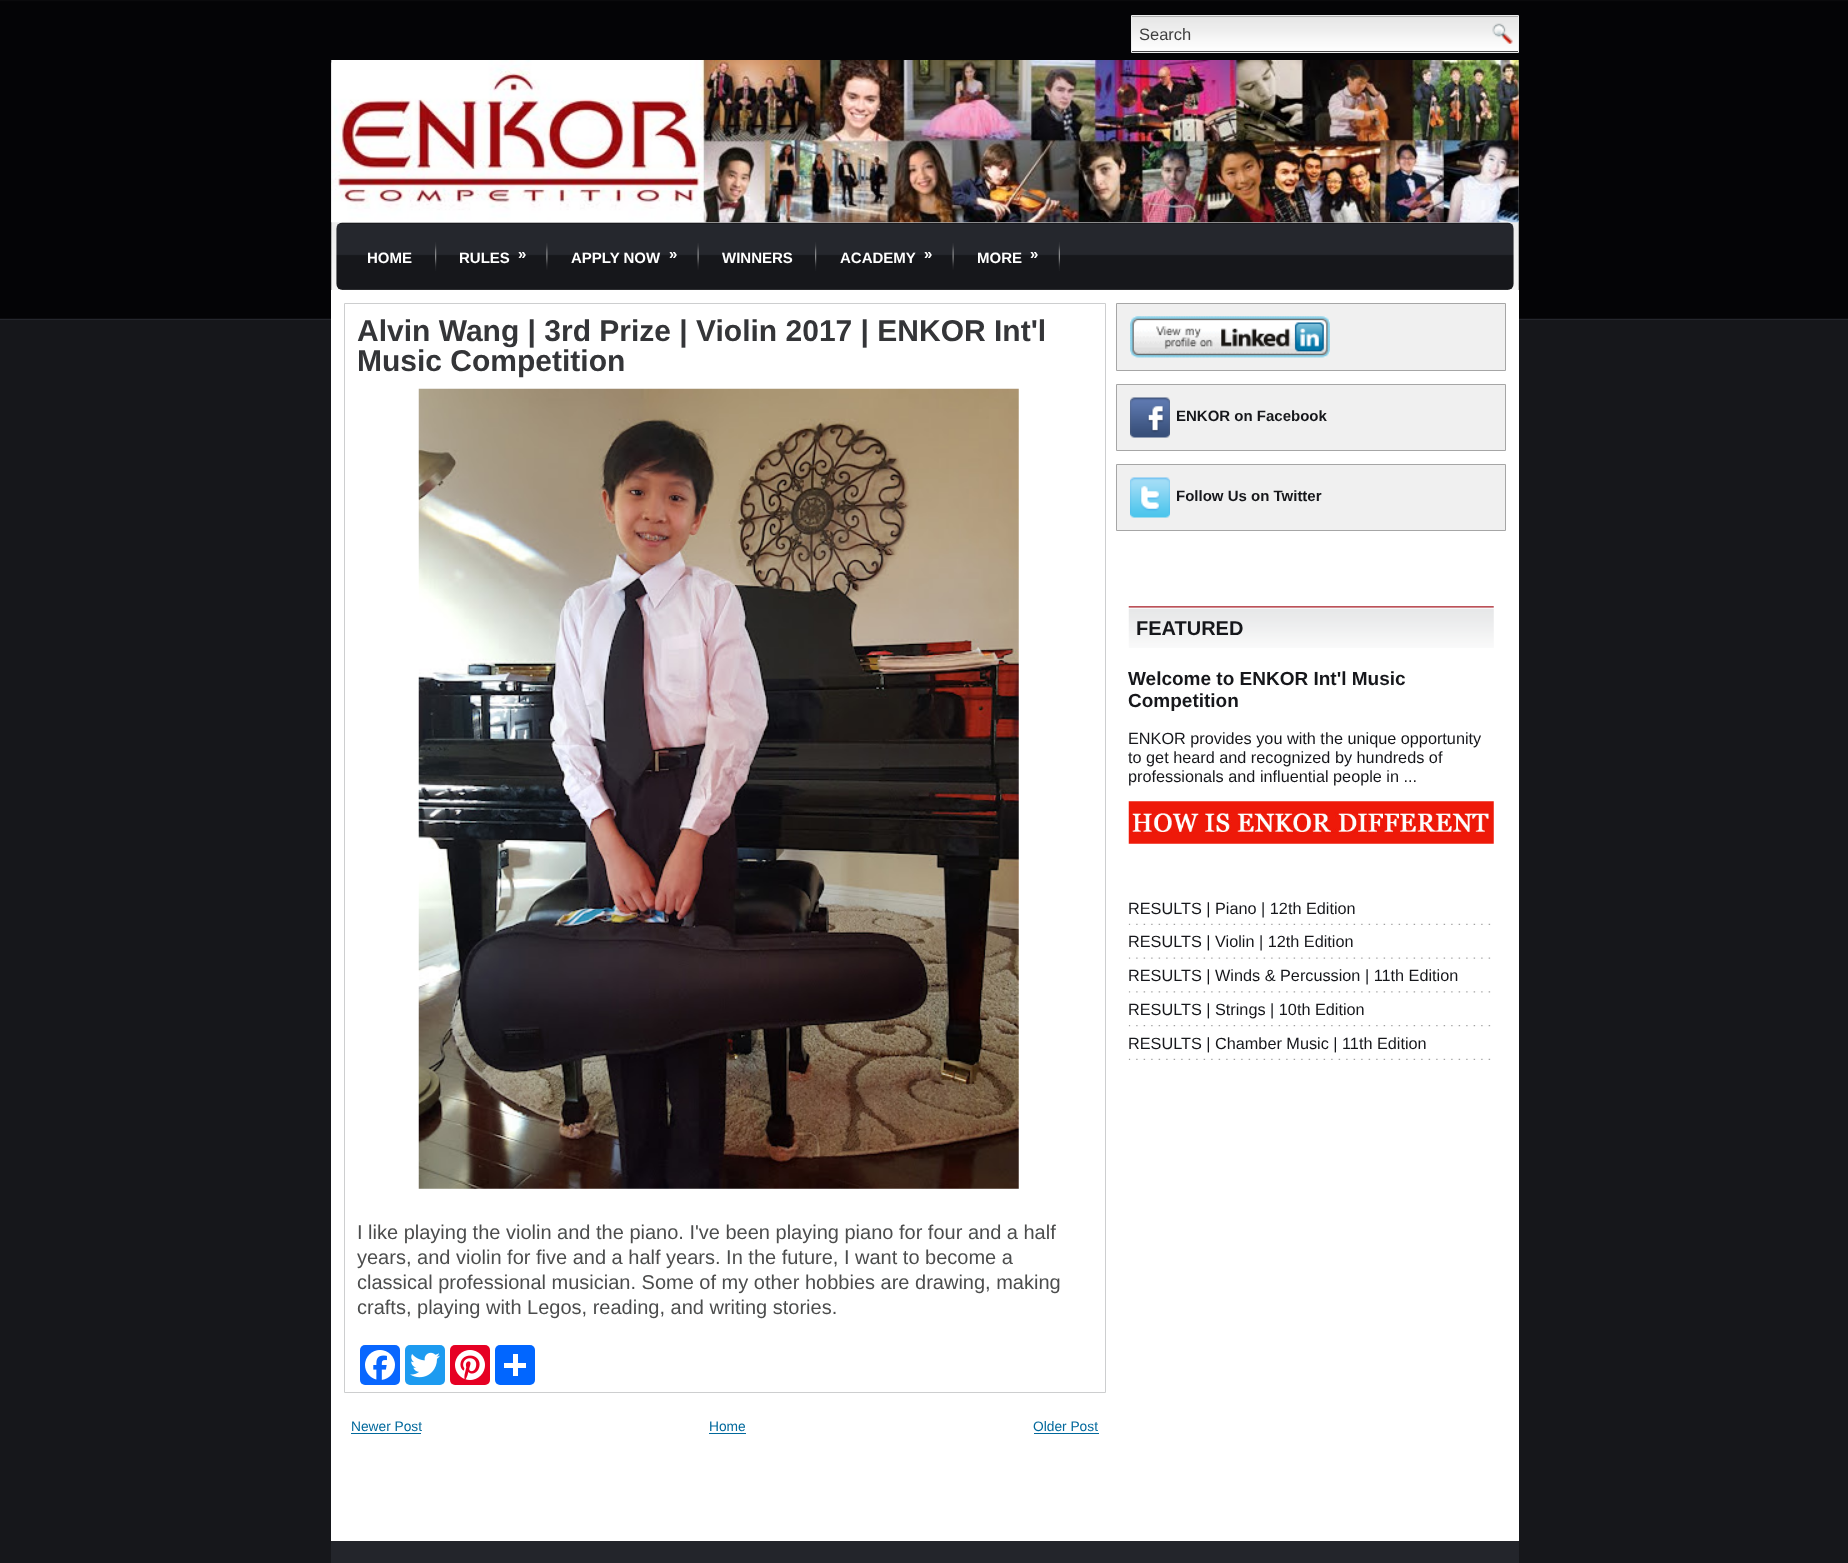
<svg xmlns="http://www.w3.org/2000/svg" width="1848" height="1563">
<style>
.a{font:16.5px Liberation Sans;fill:#3f3f3f}
.b{font:bold 15px Liberation Sans;fill:#fff}
.c{font:bold 30px Liberation Sans;fill:#343538}
.d{font:20px Liberation Sans;fill:#4c4d4d}
.e{font:13.75px Liberation Sans;fill:#01689c}
.f{font:bold 15px Liberation Sans;fill:#16171b}
.g{font:bold 20px Liberation Sans;fill:#16171b}
.h{font:bold 19px Liberation Sans;fill:#16171b}
.i{font:16.25px Liberation Sans;fill:#16171b}
</style>
<rect width="100%" height="100%" fill="#16171b"/>
<image href="1.png" x="0" y="0" width="1848" height="320"/>
<image href="2.png" x="331" y="62" width="1188" height="228"/>
<image href="3.png" x="1132" y="16" width="386" height="36"/>
<path fill="none" stroke="#edeeee" d="M1131.5 15.5h387v37H1131.5z"/>
<image href="4.png" x="1492" y="23" width="21" height="21"/>
<image href="5.png" x="331" y="60" width="1188" height="163"/>
<image href="6.png" x="336" y="222" width="1178" height="68"/>
<image href="7.png" x="435" y="242" width="2" height="29"/>
<image href="8.png" x="546" y="243" width="2" height="27"/>
<image href="9.png" x="697" y="243" width="2" height="27"/>
<image href="7.png" x="815" y="242" width="2" height="29"/>
<image href="9.png" x="952" y="243" width="2" height="27"/>
<image href="10.png" x="1058" y="242" width="2" height="29"/>
<path fill="#fff" d="M331 290h1188v1251H331z"/>
<path fill="none" stroke="#cdcecf" d="M344.5 303.5h761v1089H344.5z"/>
<image href="11.png" x="418" y="388" width="601" height="801"/>
<rect fill="#0866ff" x="360" y="1345" width="40" height="40" rx="5"/>
<image href="12.png" x="365" y="1350" width="30" height="30"/>
<rect fill="#1d9bf0" x="405" y="1345" width="40" height="40" rx="5"/>
<image href="13.png" x="410" y="1352" width="30" height="26"/>
<rect fill="#e60023" x="450" y="1345" width="40" height="40" rx="5"/>
<image href="14.png" x="455" y="1350" width="30" height="30"/>
<rect fill="#0166ff" x="495" y="1345" width="40" height="40" rx="5"/>
<path fill="#fff" d="M513 1354h5v22H513z"/>
<path fill="#fff" d="M504 1363h22v5H504z"/>
<path fill="#01689c" d="M351 1433h70v1H351z"/>
<path fill="#01689c" d="M709 1433h37v1H709z"/>
<path fill="#01689c" d="M1034 1433h65v1H1034z"/>
<path fill="#f0f0f0" stroke="#a6a6a6" d="M1116.5 303.5h389v67H1116.5z"/>
<image href="15.png" x="1130" y="316" width="200" height="42"/>
<path fill="#f0f0f0" stroke="#a6a6a6" d="M1116.5 384.5h389v66H1116.5z"/>
<image href="16.png" x="1130" y="397" width="40" height="41"/>
<path fill="#f0f0f0" stroke="#a6a6a6" d="M1116.5 464.5h389v66H1116.5z"/>
<image href="17.png" x="1130" y="477" width="40" height="41"/>
<image href="18.png" x="1128" y="606" width="366" height="42"/>
<image href="19.png" x="1128" y="801" width="366" height="43"/>
<image href="20.png" x="1128" y="923" width="363" height="2"/>
<image href="21.png" x="1128" y="957" width="363" height="2"/>
<image href="22.png" x="1128" y="991" width="363" height="2"/>
<image href="23.png" x="1128" y="1025" width="363" height="2"/>
<image href="20.png" x="1128" y="1058" width="363" height="2"/>
<path fill="#23252b" d="M331 1541h1188v22H331z"/>
<text class="a" x="1139" y="40">Search</text>
<text class="b" x="367" y="263">HOME</text>
<text class="b" x="459" y="263">RULES</text>
<text class="b" x="518" y="259">»</text>
<text class="b" x="571" y="263">APPLY NOW</text>
<text class="b" x="669" y="259">»</text>
<text class="b" x="722" y="263">WINNERS</text>
<text class="b" x="840" y="263">ACADEMY</text>
<text class="b" x="924" y="259">»</text>
<text class="b" x="977" y="263">MORE</text>
<text class="b" x="1030" y="259">»</text>
<text class="c" x="357" y="341">Alvin Wang | 3rd Prize | Violin 2017 | ENKOR Int'l</text>
<text class="c" x="357" y="371">Music Competition</text>
<text class="d" x="357" y="1239">I like playing the violin and the piano. I've been playing piano for four and a half</text>
<text class="d" x="357" y="1264">years, and violin for five and a half years. In the future, I want to become a</text>
<text class="d" x="357" y="1289">classical professional musician. Some of my other hobbies are drawing, making</text>
<text class="d" x="357" y="1314">crafts, playing with Legos, reading, and writing stories.</text>
<text class="e" x="351" y="1431">Newer Post</text>
<text class="e" x="709" y="1431">Home</text>
<text class="e" x="1033" y="1431">Older Post</text>
<text class="f" x="1176" y="421">ENKOR on Facebook</text>
<text class="f" x="1176" y="501">Follow Us on Twitter</text>
<text class="g" x="1136" y="635">FEATURED</text>
<text class="h" x="1128" y="685">Welcome to ENKOR Int'l Music</text>
<text class="h" x="1128" y="707">Competition</text>
<text class="i" x="1128" y="744">ENKOR provides you with the unique opportunity</text>
<text class="i" x="1128" y="763">to get heard and recognized by hundreds of</text>
<text class="i" x="1128" y="782">professionals and influential people in ...</text>
<text class="i" x="1128" y="914">RESULTS | Piano | 12th Edition</text>
<text class="i" x="1128" y="947">RESULTS | Violin | 12th Edition</text>
<text class="i" x="1128" y="981">RESULTS | Winds &amp; Percussion | 11th Edition</text>
<text class="i" x="1128" y="1015">RESULTS | Strings | 10th Edition</text>
<text class="i" x="1128" y="1049">RESULTS | Chamber Music | 11th Edition</text>
</svg>
